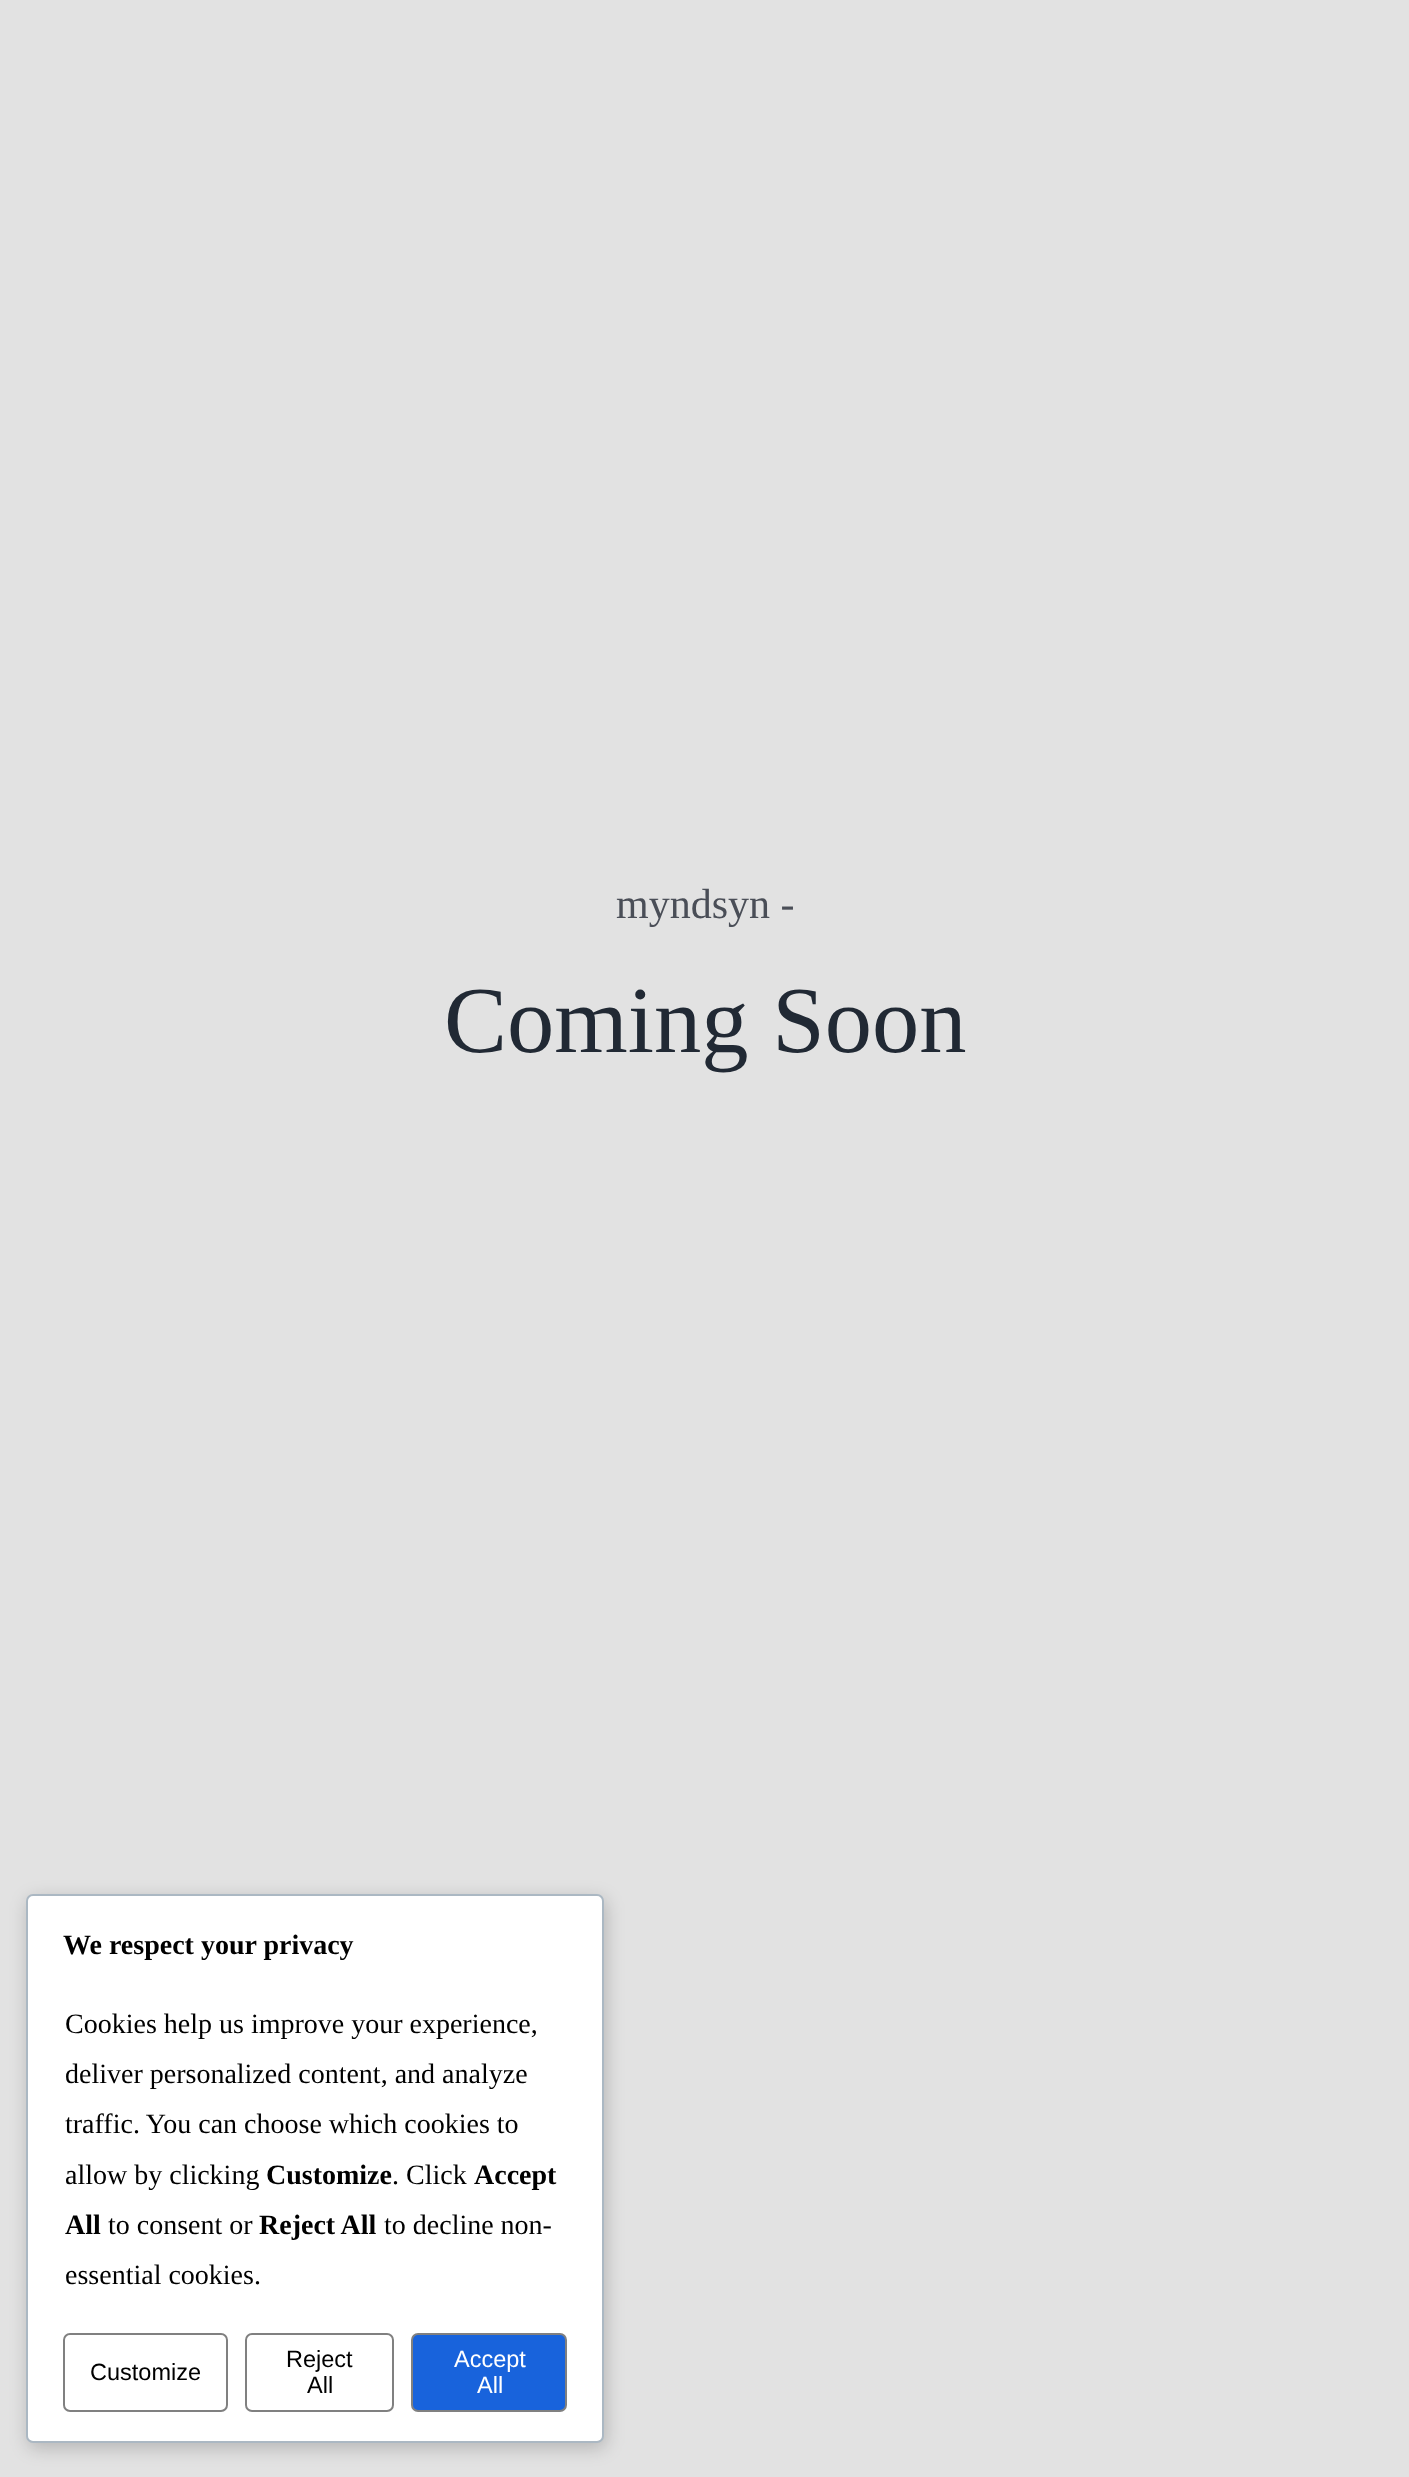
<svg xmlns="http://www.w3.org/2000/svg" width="1409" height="2477">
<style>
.a{font:42px Liberation Serif;fill:#4a4e57}
.b{font:94.5px Liberation Serif;fill:#212934}
.c{font:bold 28px Liberation Serif;fill:#000}
.d{font:28px Liberation Serif;fill:#000}
.e{font:23.5px Liberation Sans;fill:#000}
.f{font:23.5px Liberation Sans;fill:#fff}
</style>
<rect width="100%" height="100%" fill="#e2e2e2"/>
<rect fill="#00000033" filter="blur(9px)" x="28" y="1899" width="578" height="549" rx="7"/>
<rect fill="#fff" stroke="#abb8c3" stroke-width="2" x="27" y="1895" width="576" height="547" rx="6"/>
<rect fill="none" stroke="#808080" stroke-width="2" x="64" y="2334" width="163" height="77" rx="6"/>
<rect fill="none" stroke="#808080" stroke-width="2" x="246" y="2334" width="147" height="77" rx="6"/>
<rect fill="#1863dc" stroke="#808080" stroke-width="2" x="412" y="2334" width="154" height="77" rx="6"/>
<text class="a" x="616" y="918">myndsyn -</text>
<text class="b" x="444" y="1052">Coming Soon</text>
<text class="c" x="63" y="1954">We respect your privacy</text>
<text class="d" x="65" y="2033">Cookies help us improve your experience,</text>
<text class="d" x="65" y="2083">deliver personalized content, and analyze</text>
<text class="d" x="65" y="2133">traffic. You can choose which cookies to</text>
<text class="d" x="65" y="2184">allow by clicking</text>
<text class="c" x="266" y="2184">Customize</text>
<text class="d" x="392" y="2184">. Click</text>
<text class="c" x="474" y="2184">Accept</text>
<text class="c" x="65" y="2234">All</text>
<text class="d" x="108" y="2234">to consent or</text>
<text class="c" x="259" y="2234">Reject All</text>
<text class="d" x="384" y="2234">to decline non-</text>
<text class="d" x="65" y="2284">essential cookies.</text>
<text class="e" x="90" y="2380">Customize</text>
<text class="e" x="286" y="2367">Reject</text>
<text class="e" x="307" y="2393">All</text>
<text class="f" x="454" y="2367">Accept</text>
<text class="f" x="477" y="2393">All</text>
</svg>
